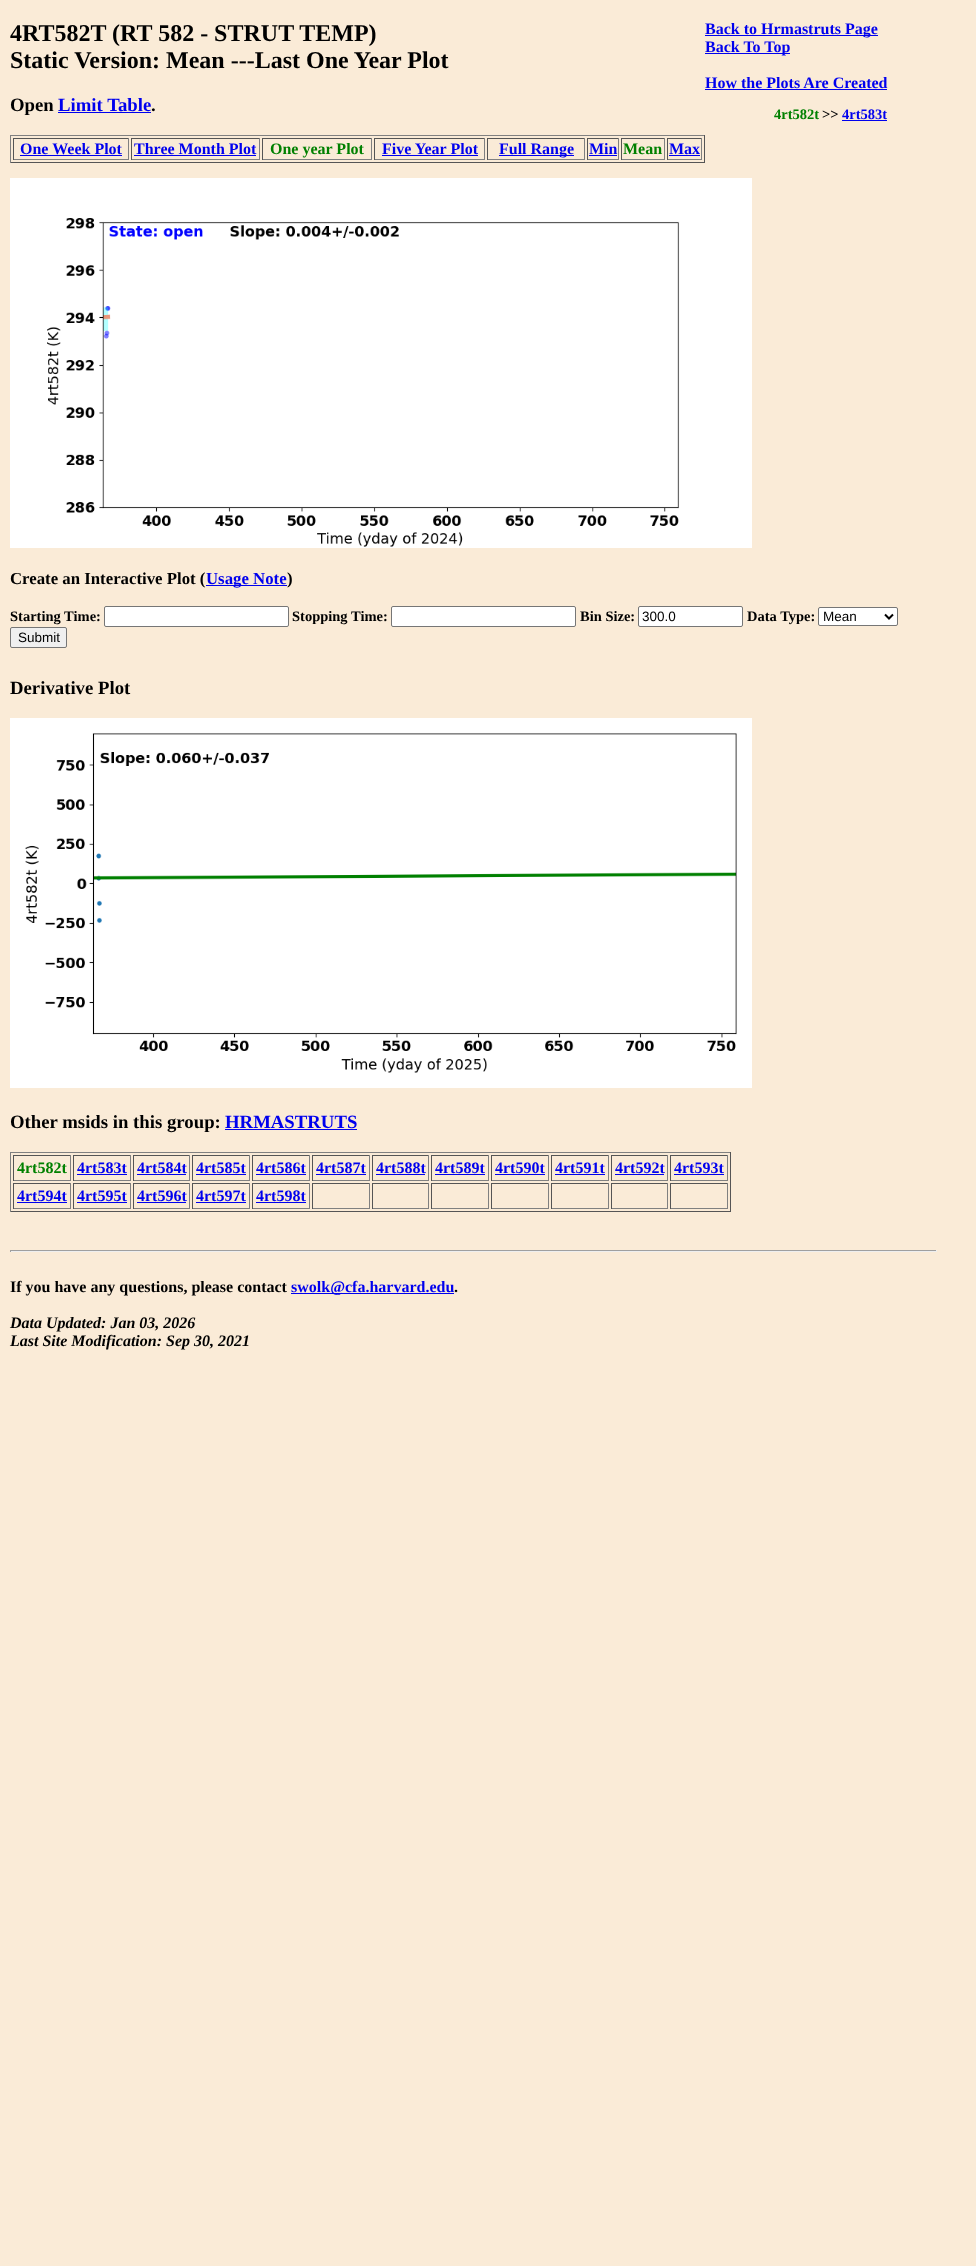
<svg xmlns="http://www.w3.org/2000/svg" width="976" height="2266">
<style>
.a{font:bold 16px Liberation Serif;fill:#00e}
.b{font:bold 14.5px Liberation Serif;fill:#008000}
.c{font:bold 14.5px Liberation Serif;fill:#000}
.d{font:bold 14.5px Liberation Serif;fill:#00e}
.e{font:bold 24px Liberation Serif;fill:#000}
.f{font:bold 18.75px Liberation Serif;fill:#000}
.g{font:bold 18.75px Liberation Serif;fill:#00e}
.h{font:bold 16px Liberation Serif;fill:#008000}
.i{font:bold 16.8px Liberation Serif;fill:#000}
.j{font:bold 16.8px Liberation Serif;fill:#00e}
.k{font:13.5px Liberation Sans;fill:#000}
.l{font:bold 16px Liberation Serif;fill:#000}
.m{font:italic bold 16px Liberation Serif;fill:#000}
</style>
<rect width="100%" height="100%" fill="#faebd7"/>
<path fill="#00e" d="M705 35h173v1H705z"/>
<path fill="#00e" d="M705 53h85v1H705z"/>
<path fill="#00e" d="M705 89h182v1H705z"/>
<path fill="#00e" d="M842 120h45v1H842z"/>
<path fill="#00e" d="M58 112h93v1H58z"/>
<path fill="#808080" d="M10 135h695v1H10z"/>
<path fill="#555" d="M704 135h1v28H704z"/>
<path fill="#555" d="M10 162h695v1H10z"/>
<path fill="#808080" d="M10 135h1v28H10z"/>
<path fill="#555" d="M13 138h116v1H13z"/>
<path fill="#808080" d="M128 138h1v22H128z"/>
<path fill="#808080" d="M13 159h116v1H13z"/>
<path fill="#555" d="M13 138h1v22H13z"/>
<path fill="#00e" d="M20 155h102v1H20z"/>
<path fill="#555" d="M131 138h129v1H131z"/>
<path fill="#808080" d="M259 138h1v22H259z"/>
<path fill="#808080" d="M131 159h129v1H131z"/>
<path fill="#555" d="M131 138h1v22H131z"/>
<path fill="#00e" d="M134 155h122v1H134z"/>
<path fill="#555" d="M262 138h110v1H262z"/>
<path fill="#808080" d="M371 138h1v22H371z"/>
<path fill="#808080" d="M262 159h110v1H262z"/>
<path fill="#555" d="M262 138h1v22H262z"/>
<path fill="#555" d="M374 138h111v1H374z"/>
<path fill="#808080" d="M484 138h1v22H484z"/>
<path fill="#808080" d="M374 159h111v1H374z"/>
<path fill="#555" d="M374 138h1v22H374z"/>
<path fill="#00e" d="M382 155h96v1H382z"/>
<path fill="#555" d="M487 138h98v1H487z"/>
<path fill="#808080" d="M584 138h1v22H584z"/>
<path fill="#808080" d="M487 159h98v1H487z"/>
<path fill="#555" d="M487 138h1v22H487z"/>
<path fill="#00e" d="M499 155h75v1H499z"/>
<path fill="#555" d="M587 138h32v1H587z"/>
<path fill="#808080" d="M618 138h1v22H618z"/>
<path fill="#808080" d="M587 159h32v1H587z"/>
<path fill="#555" d="M587 138h1v22H587z"/>
<path fill="#00e" d="M589 155h28v1H589z"/>
<path fill="#555" d="M621 138h44v1H621z"/>
<path fill="#808080" d="M664 138h1v22H664z"/>
<path fill="#808080" d="M621 159h44v1H621z"/>
<path fill="#555" d="M621 138h1v22H621z"/>
<path fill="#555" d="M667 138h35v1H667z"/>
<path fill="#808080" d="M701 138h1v22H701z"/>
<path fill="#808080" d="M667 159h35v1H667z"/>
<path fill="#555" d="M667 138h1v22H667z"/>
<path fill="#00e" d="M669 155h31v1H669z"/>
<image href="1.png" x="10" y="178" width="742" height="370"/>
<path fill="#00e" d="M206 585h81v1H206z"/>
<rect fill="#fff" stroke="#767676" x="104.5" y="606.5" width="184" height="20" rx="1.5"/>
<rect fill="#fff" stroke="#767676" x="391.5" y="606.5" width="184" height="20" rx="1.5"/>
<rect fill="#fff" stroke="#767676" x="638.5" y="606.5" width="104" height="20" rx="1.5"/>
<rect fill="#fff" stroke="#767676" x="818.5" y="607.5" width="79" height="18" rx="1.5"/>
<path fill="none" stroke="#000" stroke-width="2" d="M885 614.5l4 4l4-4"/>
<rect fill="#efefef" stroke="#767676" x="10.5" y="627.5" width="56" height="20" rx="1.5"/>
<image href="2.png" x="10" y="718" width="742" height="370"/>
<path fill="#00e" d="M225 1129h132v1H225z"/>
<path fill="#808080" d="M10 1152h721v1H10z"/>
<path fill="#555" d="M730 1152h1v60H730z"/>
<path fill="#555" d="M10 1211h721v1H10z"/>
<path fill="#808080" d="M10 1152h1v60H10z"/>
<path fill="#555" d="M13 1155h58v1H13z"/>
<path fill="#808080" d="M70 1155h1v26H70z"/>
<path fill="#808080" d="M13 1180h58v1H13z"/>
<path fill="#555" d="M13 1155h1v26H13z"/>
<path fill="#555" d="M73 1155h58v1H73z"/>
<path fill="#808080" d="M130 1155h1v26H130z"/>
<path fill="#808080" d="M73 1180h58v1H73z"/>
<path fill="#555" d="M73 1155h1v26H73z"/>
<path fill="#00e" d="M77 1174h50v1H77z"/>
<path fill="#555" d="M133 1155h57v1H133z"/>
<path fill="#808080" d="M189 1155h1v26H189z"/>
<path fill="#808080" d="M133 1180h57v1H133z"/>
<path fill="#555" d="M133 1155h1v26H133z"/>
<path fill="#00e" d="M137 1174h49v1H137z"/>
<path fill="#555" d="M192 1155h58v1H192z"/>
<path fill="#808080" d="M249 1155h1v26H249z"/>
<path fill="#808080" d="M192 1180h58v1H192z"/>
<path fill="#555" d="M192 1155h1v26H192z"/>
<path fill="#00e" d="M196 1174h50v1H196z"/>
<path fill="#555" d="M252 1155h58v1H252z"/>
<path fill="#808080" d="M309 1155h1v26H309z"/>
<path fill="#808080" d="M252 1180h58v1H252z"/>
<path fill="#555" d="M252 1155h1v26H252z"/>
<path fill="#00e" d="M256 1174h50v1H256z"/>
<path fill="#555" d="M312 1155h58v1H312z"/>
<path fill="#808080" d="M369 1155h1v26H369z"/>
<path fill="#808080" d="M312 1180h58v1H312z"/>
<path fill="#555" d="M312 1155h1v26H312z"/>
<path fill="#00e" d="M316 1174h50v1H316z"/>
<path fill="#555" d="M372 1155h57v1H372z"/>
<path fill="#808080" d="M428 1155h1v26H428z"/>
<path fill="#808080" d="M372 1180h57v1H372z"/>
<path fill="#555" d="M372 1155h1v26H372z"/>
<path fill="#00e" d="M376 1174h49v1H376z"/>
<path fill="#555" d="M431 1155h58v1H431z"/>
<path fill="#808080" d="M488 1155h1v26H488z"/>
<path fill="#808080" d="M431 1180h58v1H431z"/>
<path fill="#555" d="M431 1155h1v26H431z"/>
<path fill="#00e" d="M435 1174h50v1H435z"/>
<path fill="#555" d="M491 1155h58v1H491z"/>
<path fill="#808080" d="M548 1155h1v26H548z"/>
<path fill="#808080" d="M491 1180h58v1H491z"/>
<path fill="#555" d="M491 1155h1v26H491z"/>
<path fill="#00e" d="M495 1174h50v1H495z"/>
<path fill="#555" d="M551 1155h58v1H551z"/>
<path fill="#808080" d="M608 1155h1v26H608z"/>
<path fill="#808080" d="M551 1180h58v1H551z"/>
<path fill="#555" d="M551 1155h1v26H551z"/>
<path fill="#00e" d="M555 1174h50v1H555z"/>
<path fill="#555" d="M611 1155h57v1H611z"/>
<path fill="#808080" d="M667 1155h1v26H667z"/>
<path fill="#808080" d="M611 1180h57v1H611z"/>
<path fill="#555" d="M611 1155h1v26H611z"/>
<path fill="#00e" d="M615 1174h49v1H615z"/>
<path fill="#555" d="M670 1155h58v1H670z"/>
<path fill="#808080" d="M727 1155h1v26H727z"/>
<path fill="#808080" d="M670 1180h58v1H670z"/>
<path fill="#555" d="M670 1155h1v26H670z"/>
<path fill="#00e" d="M674 1174h50v1H674z"/>
<path fill="#555" d="M13 1183h58v1H13z"/>
<path fill="#808080" d="M70 1183h1v26H70z"/>
<path fill="#808080" d="M13 1208h58v1H13z"/>
<path fill="#555" d="M13 1183h1v26H13z"/>
<path fill="#00e" d="M17 1202h50v1H17z"/>
<path fill="#555" d="M73 1183h58v1H73z"/>
<path fill="#808080" d="M130 1183h1v26H130z"/>
<path fill="#808080" d="M73 1208h58v1H73z"/>
<path fill="#555" d="M73 1183h1v26H73z"/>
<path fill="#00e" d="M77 1202h50v1H77z"/>
<path fill="#555" d="M133 1183h57v1H133z"/>
<path fill="#808080" d="M189 1183h1v26H189z"/>
<path fill="#808080" d="M133 1208h57v1H133z"/>
<path fill="#555" d="M133 1183h1v26H133z"/>
<path fill="#00e" d="M137 1202h49v1H137z"/>
<path fill="#555" d="M192 1183h58v1H192z"/>
<path fill="#808080" d="M249 1183h1v26H249z"/>
<path fill="#808080" d="M192 1208h58v1H192z"/>
<path fill="#555" d="M192 1183h1v26H192z"/>
<path fill="#00e" d="M196 1202h50v1H196z"/>
<path fill="#555" d="M252 1183h58v1H252z"/>
<path fill="#808080" d="M309 1183h1v26H309z"/>
<path fill="#808080" d="M252 1208h58v1H252z"/>
<path fill="#555" d="M252 1183h1v26H252z"/>
<path fill="#00e" d="M256 1202h50v1H256z"/>
<path fill="#555" d="M312 1183h58v1H312z"/>
<path fill="#808080" d="M369 1183h1v26H369z"/>
<path fill="#808080" d="M312 1208h58v1H312z"/>
<path fill="#555" d="M312 1183h1v26H312z"/>
<path fill="#555" d="M372 1183h57v1H372z"/>
<path fill="#808080" d="M428 1183h1v26H428z"/>
<path fill="#808080" d="M372 1208h57v1H372z"/>
<path fill="#555" d="M372 1183h1v26H372z"/>
<path fill="#555" d="M431 1183h58v1H431z"/>
<path fill="#808080" d="M488 1183h1v26H488z"/>
<path fill="#808080" d="M431 1208h58v1H431z"/>
<path fill="#555" d="M431 1183h1v26H431z"/>
<path fill="#555" d="M491 1183h58v1H491z"/>
<path fill="#808080" d="M548 1183h1v26H548z"/>
<path fill="#808080" d="M491 1208h58v1H491z"/>
<path fill="#555" d="M491 1183h1v26H491z"/>
<path fill="#555" d="M551 1183h58v1H551z"/>
<path fill="#808080" d="M608 1183h1v26H608z"/>
<path fill="#808080" d="M551 1208h58v1H551z"/>
<path fill="#555" d="M551 1183h1v26H551z"/>
<path fill="#555" d="M611 1183h57v1H611z"/>
<path fill="#808080" d="M667 1183h1v26H667z"/>
<path fill="#808080" d="M611 1208h57v1H611z"/>
<path fill="#555" d="M611 1183h1v26H611z"/>
<path fill="#555" d="M670 1183h58v1H670z"/>
<path fill="#808080" d="M727 1183h1v26H727z"/>
<path fill="#808080" d="M670 1208h58v1H670z"/>
<path fill="#555" d="M670 1183h1v26H670z"/>
<path fill="#9f9f9f" d="M10 1250h927v1H10z"/>
<path fill="#eee" d="M936 1250h1v2H936z"/>
<path fill="#eee" d="M10 1251h927v1H10z"/>
<path fill="#9f9f9f" d="M10 1250h1v2H10z"/>
<path fill="#00e" d="M291 1293h163v1H291z"/>
<text class="a" x="705" y="34">Back to Hrmastruts Page</text>
<text class="a" x="705" y="52">Back To Top</text>
<text class="a" x="705" y="88">How the Plots Are Created</text>
<text class="b" x="774" y="119">4rt582t</text>
<text class="c" x="822" y="119">&gt;&gt;</text>
<text class="d" x="842" y="119">4rt583t</text>
<text class="e" x="10" y="41">4RT582T (RT 582 - STRUT TEMP)</text>
<text class="e" x="10" y="68">Static Version: Mean ---Last One Year Plot</text>
<text class="f" x="10" y="111">Open</text>
<text class="g" x="58" y="111">Limit Table</text>
<text class="f" x="151" y="111">.</text>
<text class="a" x="20" y="154">One Week Plot</text>
<text class="a" x="134" y="154">Three Month Plot</text>
<text class="h" x="270" y="154">One year Plot</text>
<text class="a" x="382" y="154">Five Year Plot</text>
<text class="a" x="499" y="154">Full Range</text>
<text class="a" x="589" y="154">Min</text>
<text class="h" x="623" y="154">Mean</text>
<text class="a" x="669" y="154">Max</text>
<text class="i" x="10" y="584">Create an Interactive Plot (</text>
<text class="j" x="206" y="584">Usage Note</text>
<text class="i" x="287" y="584">)</text>
<text class="c" x="10" y="621">Starting Time:</text>
<text class="c" x="292" y="621">Stopping Time:</text>
<text class="c" x="580" y="621">Bin Size:</text>
<text class="k" x="642" y="621">300.0</text>
<text class="c" x="747" y="621">Data Type:</text>
<text class="k" x="823" y="621">Mean</text>
<text class="k" x="18" y="642">Submit</text>
<text class="f" x="10" y="694">Derivative Plot</text>
<text class="f" x="10" y="1128">Other msids in this group:</text>
<text class="g" x="225" y="1128">HRMASTRUTS</text>
<text class="h" x="17" y="1173">4rt582t</text>
<text class="a" x="77" y="1173">4rt583t</text>
<text class="a" x="137" y="1173">4rt584t</text>
<text class="a" x="196" y="1173">4rt585t</text>
<text class="a" x="256" y="1173">4rt586t</text>
<text class="a" x="316" y="1173">4rt587t</text>
<text class="a" x="376" y="1173">4rt588t</text>
<text class="a" x="435" y="1173">4rt589t</text>
<text class="a" x="495" y="1173">4rt590t</text>
<text class="a" x="555" y="1173">4rt591t</text>
<text class="a" x="615" y="1173">4rt592t</text>
<text class="a" x="674" y="1173">4rt593t</text>
<text class="a" x="17" y="1201">4rt594t</text>
<text class="a" x="77" y="1201">4rt595t</text>
<text class="a" x="137" y="1201">4rt596t</text>
<text class="a" x="196" y="1201">4rt597t</text>
<text class="a" x="256" y="1201">4rt598t</text>
<text class="l" x="10" y="1292">If you have any questions, please contact</text>
<text class="a" x="291" y="1292">swolk@cfa.harvard.edu</text>
<text class="l" x="454" y="1292">.</text>
<text class="m" x="10" y="1328">Data Updated: Jan 03, 2026</text>
<text class="m" x="10" y="1346">Last Site Modification: Sep 30, 2021</text>
</svg>
